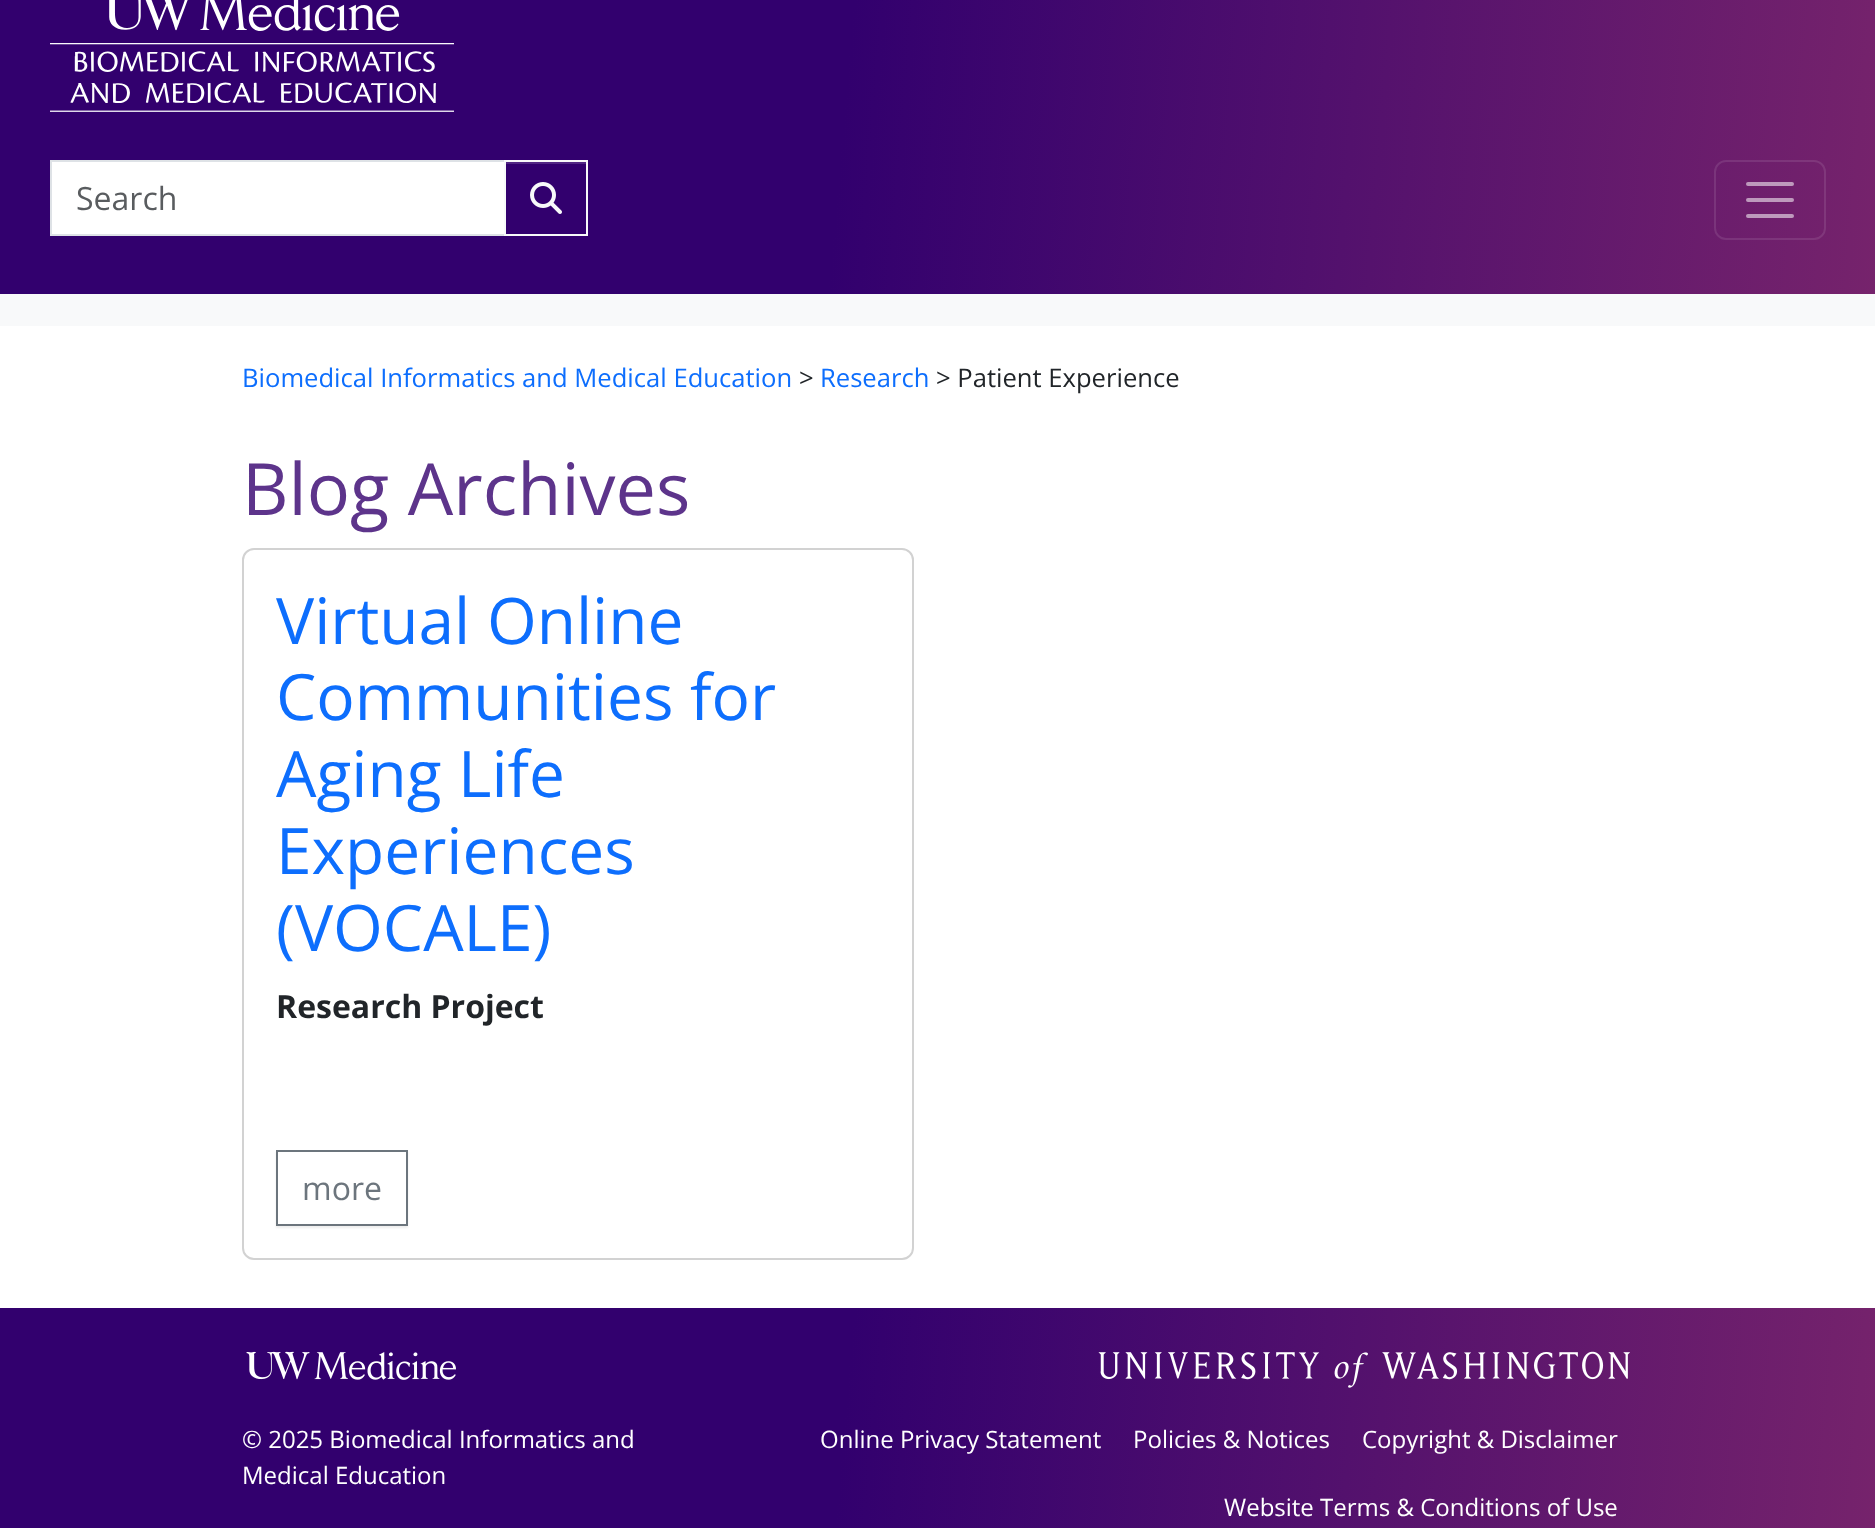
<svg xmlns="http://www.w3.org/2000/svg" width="1875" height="1528">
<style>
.a{font:32px Open Sans;fill:#595c5f}
.b{font:25.6px Open Sans;fill:#0d6efd}
.c{font:25.6px Open Sans;fill:#212529}
.d{font:72px Open Sans;fill:#5d348b}
.e{font:64px Open Sans;fill:#0d6efd}
.f{font:bold 32px Open Sans;fill:#212529}
.g{font:32px Open Sans;fill:#6c757d}
.h{font:24px Open Sans;fill:#fff}
</style>
<defs>
<linearGradient id="g1" gradientUnits="userSpaceOnUse" x1="-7.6" y1="41" x2="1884" y2="207"><stop offset="0" stop-color="#32006e"/><stop offset="0.45" stop-color="#32006e"/><stop offset="1" stop-color="#76236c"/></linearGradient>
<clipPath id="clip1"><path d="M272 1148h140v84h-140zm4 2h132v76h-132z" clip-rule="evenodd"/></clipPath>
<linearGradient id="g2" gradientUnits="userSpaceOnUse" x1="-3.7" y1="1351" x2="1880" y2="1515"><stop offset="0" stop-color="#32006e"/><stop offset="0.45" stop-color="#32006e"/><stop offset="1" stop-color="#76236c"/></linearGradient>
</defs>
<rect width="100%" height="100%" fill="#fff"/>
<path fill="url(#g1)" d="M0 0h1875v294H0z"/>
<image href="1.png" x="50" y="0" width="404" height="112"/>
<path fill="#fff" stroke="#dee2e6" stroke-width="2" d="M51 161h454v74H51z"/>
<path fill="#512684" d="M506 162h80v2H506z"/>
<path fill="none" stroke="#f8f9fa" stroke-width="2" d="M505 161h82v74H505z"/>
<image href="2.png" x="530" y="182" width="32" height="32"/>
<rect fill="none" stroke="#ffffff1a" stroke-width="2" x="1715" y="161" width="110" height="78" rx="11"/>
<path fill="none" stroke="#ffffff8c" stroke-width="4" stroke-linecap="round" d="M1748 184h44m-44 16h44m-44 16h44"/>
<path fill="#f8f9fa" d="M0 294h1875v32H0z"/>
<rect fill="none" stroke="#d2d2d2" stroke-width="2" x="243" y="549" width="670" height="710" rx="11"/>
<g clip-path="url(#clip1)">
<path fill="#00000012" filter="blur(1px)" d="M276 1152h132v76H276z"/>
</g>
<path fill="none" stroke="#6c757d" stroke-width="2" d="M277 1151h130v74H277z"/>
<path fill="url(#g2)" d="M0 1308h1875v220H0z"/>
<image href="3.png" x="246" y="1351" width="210" height="29"/>
<image href="4.png" x="1098" y="1351" width="532" height="37"/>
<text class="a" x="76" y="210">Search</text>
<text class="b" x="242" y="387">Biomedical Informatics and Medical Education</text>
<text class="c" x="799" y="387">&gt;</text>
<text class="b" x="820" y="387">Research</text>
<text class="c" x="936" y="387">&gt; Patient Experience</text>
<text class="d" x="242" y="515">Blog Archives</text>
<text class="e" x="276" y="644">Virtual Online</text>
<text class="e" x="276" y="720">Communities for</text>
<text class="e" x="276" y="797">Aging Life</text>
<text class="e" x="276" y="874">Experiences</text>
<text class="e" x="276" y="951">(VOCALE)</text>
<text class="f" x="276" y="1018">Research Project</text>
<text class="g" x="302" y="1200">more</text>
<text class="h" x="242" y="1448">© 2025 Biomedical Informatics and</text>
<text class="h" x="242" y="1484">Medical Education</text>
<text class="h" x="820" y="1448">Online Privacy Statement</text>
<text class="h" x="1133" y="1448">Policies &amp; Notices</text>
<text class="h" x="1362" y="1448">Copyright &amp; Disclaimer</text>
<text class="h" x="1224" y="1516">Website Terms &amp; Conditions of Use</text>
</svg>
